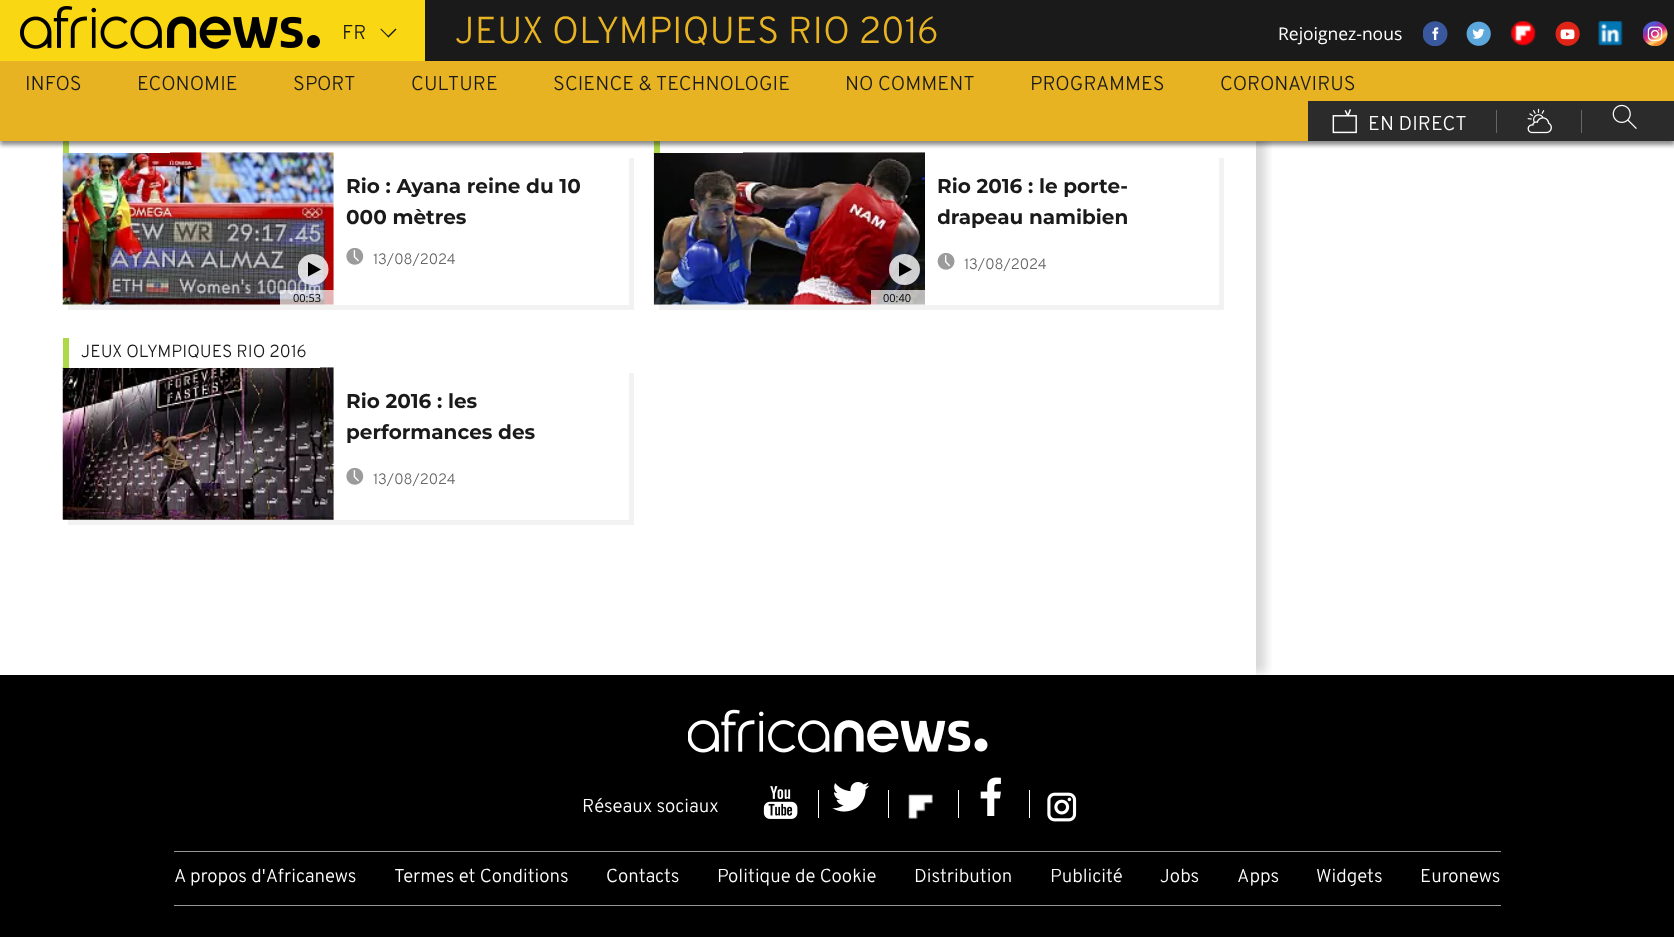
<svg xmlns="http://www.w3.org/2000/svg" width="1674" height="937">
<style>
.a{font:300 20px Overpass;fill:#1a1a1a}
.b{font:300 37.5px Overpass;fill:#e7b322}
.c{font:17.5px Open Sans;fill:#fff}
.d{font:300 20px Overpass;fill:#fff}
.e{font:100 20px Montserrat;fill:#1a1a1a}
.f{font:300 15px Overpass;fill:#666}
.g{font:11px Open Sans;fill:#000}
.h{font:300 17.5px Overpass;fill:#1a1a1a}
.i{font:300 18.75px Overpass;fill:#fff}
</style>
<defs>
<clipPath id="clip1"><path d="M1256 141h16v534H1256z"/></clipPath>
<clipPath id="clip2"><path d="M298 254h31v31H298z"/></clipPath>
<clipPath id="clip3"><path d="M938 170h256v68H938z"/></clipPath>
</defs>
<rect width="100%" height="100%" fill="#fff"/>
<g clip-path="url(#clip1)">
<path fill="#00000026" filter="blur(5px)" d="M35 -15h1231v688H35z"/>
</g>
<path fill="#1a1a1a" d="M425 0h1249v61H425z"/>
<path fill="#f2f2f2" d="M68 305v5h566v-152h-5v147z"/>
<image href="12.png" x="62" y="152" width="272" height="153"/>
<path fill="#aed749" d="M63 141h6v12H63z"/>
<path fill="#f2f2f2" d="M659 305v5h565v-152h-5v147z"/>
<image href="14.png" x="653" y="152" width="272" height="153"/>
<path fill="#aed749" d="M654 141h6v12H654z"/>
<path fill="#00000073" filter="blur(2px)" d="M0 65h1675v80H0z"/>
<path fill="#f9d713" d="M0 0h425v61H0z"/>
<image href="1.png" x="20" y="6" width="300" height="43"/>
<path fill="#1a1a1a" d="M387.5 36.5l8-8l1 1l-8 8z"/>
<path fill="#1a1a1a" d="M380.5 29.5l.5-1l8 8l-.5 1z"/>
<image href="2.png" x="1423" y="21" width="25" height="25"/>
<image href="3.png" x="1466" y="21" width="25" height="25"/>
<image href="4.png" x="1511" y="21" width="25" height="25"/>
<image href="5.png" x="1555" y="21" width="25" height="25"/>
<image href="6.png" x="1598" y="21" width="25" height="25"/>
<image href="7.png" x="1643" y="21" width="25" height="25"/>
<path fill="#e7b322" d="M0 61h1674v80H0z"/>
<path fill="#2b2b2b" d="M1308 101h366v40H1308z"/>
<image href="8.png" x="1332" y="109" width="25" height="25"/>
<path fill="#666" d="M1496 110h1v23H1496z"/>
<image href="9.png" x="1527" y="108" width="25" height="26"/>
<path fill="#666" d="M1581 110h1v23H1581z"/>
<image href="10.png" x="1612" y="104" width="25" height="25"/>
<path fill="#fff" d="M69 152h101v1H69z"/>
<image href="11.png" x="346" y="247" width="18" height="18"/>
<g clip-path="url(#clip2)">
<circle fill="#ffffffcc" cx="313" cy="269.5" r="15.5"/>
</g>
<path fill="#000" d="M321 269.5l-13 7v-14.5z"/>
<path fill="#ffffffb3" d="M280 290h54v15H280z"/>
<path fill="#fff" d="M660 152h83v1H660z"/>
<image href="13.png" x="937" y="252" width="18" height="18"/>
<circle fill="#ffffffcc" cx="904.5" cy="269.5" r="15.5"/>
<path fill="#000" d="M912 269.5l-13 7v-14.5z"/>
<path fill="#ffffffb3" d="M871 290h54v15H871z"/>
<path fill="#f2f2f2" d="M68 520v5h566v-152h-5v147z"/>
<image href="15.png" x="62" y="367" width="272" height="153"/>
<path fill="#fff" d="M69 367h251v1H69z"/>
<path fill="#aed749" d="M63 338h6v30H63z"/>
<image href="11.png" x="346" y="467" width="18" height="18"/>
<path fill="#000" d="M0 675h1674v262H0z"/>
<image href="16.png" x="688" y="709" width="300" height="44"/>
<image href="17.png" x="763" y="786" width="35" height="33"/>
<path fill="#fff" d="M818 790h1v28H818z"/>
<path fill="#fff" d="M888 790h1v28H888z"/>
<image href="18.png" x="832" y="782" width="38" height="30"/>
<image href="19.png" x="908" y="794" width="25" height="25"/>
<path fill="#fff" d="M958 790h1v28H958z"/>
<path fill="#fff" d="M1029 790h1v28H1029z"/>
<image href="20.png" x="980" y="777" width="21" height="39"/>
<image href="21.png" x="1047" y="792" width="30" height="30"/>
<path fill="#979797" d="M174 851h1327v1H174z"/>
<path fill="#979797" d="M174 905h1327v1H174z"/>
<text class="a" x="342" y="39">FR</text>
<text class="b" x="455" y="43">JEUX OLYMPIQUES RIO 2016</text>
<text class="c" x="1278" y="40">Rejoignez-nous</text>
<text class="a" x="25" y="90">INFOS</text>
<text class="a" x="137" y="90">ECONOMIE</text>
<text class="a" x="293" y="90">SPORT</text>
<text class="a" x="411" y="90">CULTURE</text>
<text class="a" x="553" y="90">SCIENCE &amp; TECHNOLOGIE</text>
<text class="a" x="845" y="90">NO COMMENT</text>
<text class="a" x="1030" y="90">PROGRAMMES</text>
<text class="a" x="1220" y="90">CORONAVIRUS</text>
<text class="d" x="1368" y="130">EN DIRECT</text>
<text class="e" x="346" y="193">Rio : Ayana reine du 10</text>
<text class="e" x="346" y="224">000 mètres</text>
<text class="f" x="373" y="264">13/08/2024</text>
<text class="g" x="293" y="302">00:53</text>
<text class="e" x="937" y="193">Rio 2016 : le porte-</text>
<g clip-path="url(#clip3)">
<text class="e" x="937" y="224">drapeau namibien</text>
</g>
<text class="f" x="964" y="269">13/08/2024</text>
<text class="g" x="883" y="302">00:40</text>
<text class="h" x="81" y="357">JEUX OLYMPIQUES RIO 2016</text>
<text class="e" x="346" y="408">Rio 2016 : les</text>
<text class="e" x="346" y="439">performances des</text>
<text class="f" x="373" y="484">13/08/2024</text>
<text class="i" x="582" y="812">Réseaux sociaux</text>
<text class="i" x="174" y="882">A propos d'Africanews</text>
<text class="i" x="394" y="882">Termes et Conditions</text>
<text class="i" x="606" y="882">Contacts</text>
<text class="i" x="717" y="882">Politique de Cookie</text>
<text class="i" x="914" y="882">Distribution</text>
<text class="i" x="1050" y="882">Publicité</text>
<text class="i" x="1160" y="882">Jobs</text>
<text class="i" x="1237" y="882">Apps</text>
<text class="i" x="1316" y="882">Widgets</text>
<text class="i" x="1420" y="882">Euronews</text>
</svg>
